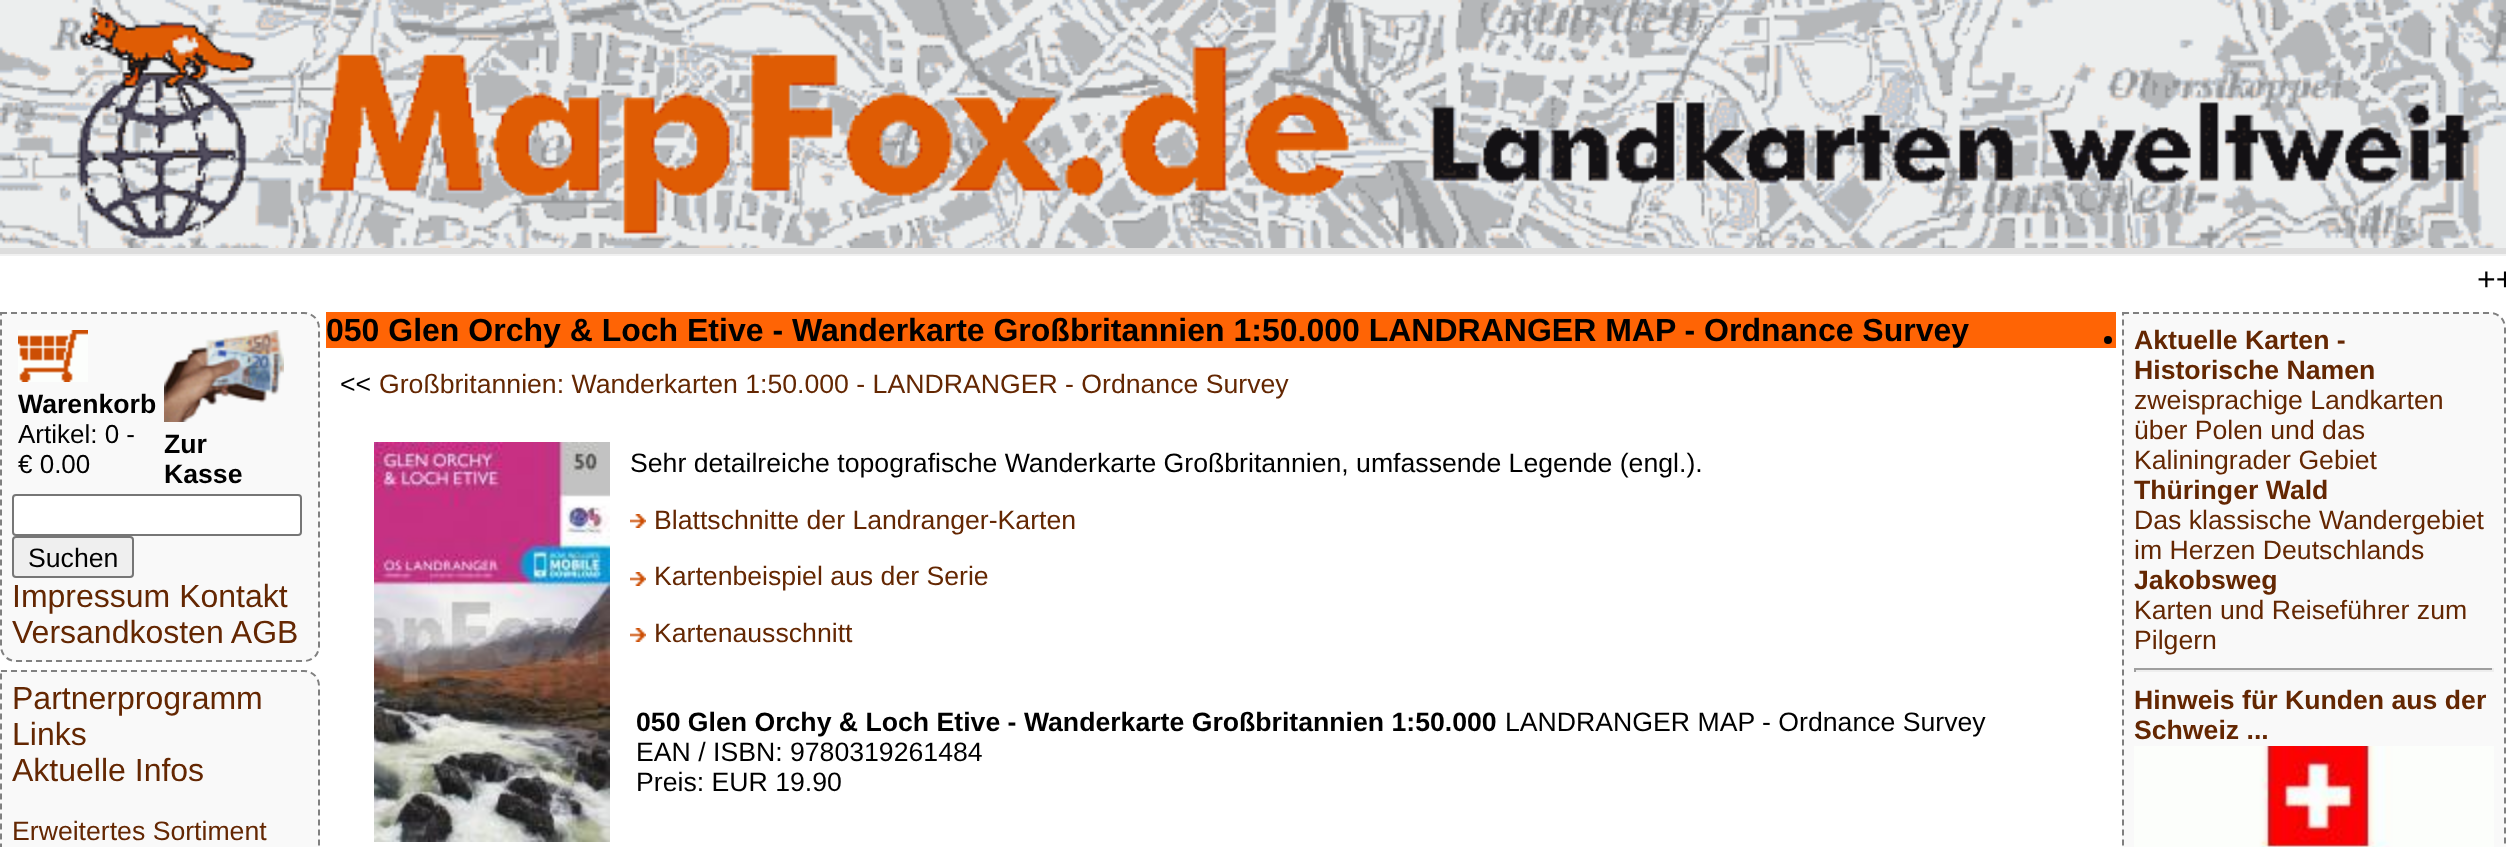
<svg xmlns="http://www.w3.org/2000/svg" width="2506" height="847">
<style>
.a{font:32px Liberation Sans;fill:#000}
.b{font:bold 32px Liberation Sans;fill:#000}
.c{font:bold 26.65px Liberation Sans;fill:#642702}
.d{font:26.65px Liberation Sans;fill:#642702}
.e{font:bold 26.65px Liberation Sans;fill:#000}
.f{font:26px Liberation Sans;fill:#000}
.g{font:26.65px Liberation Sans;fill:#000}
.h{font:32px Liberation Sans;fill:#642702}
</style>
<rect width="100%" height="100%" fill="#fff"/>
<path fill="#f1f1f1" d="M0 254h2506v2H0z"/>
<image href="1.png" x="0" y="0" width="2506" height="248"/>
<path fill="#ddd" d="M0 248h2506v6H0z"/>
<path fill="#ff6405" d="M326 312h1790v36H326z"/>
<path fill="#f9f9f9" d="M2122 312h368c9 0 16 7 16 16v519c0 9-7 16-16 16h-352c-9 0-16-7-16-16z"/>
<path fill="none" stroke="#808080" stroke-width="2" stroke-dasharray="6 4" d="M2123 313h367c8.5 0 15 6.5 15 15v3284c0 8.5-6.5 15-15 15h-352c-8.5 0-15-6.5-15-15z"/>
<circle fill="#000" cx="2108" cy="340" r="4"/>
<path fill="#9f9f9f" d="M2134 668h360v2H2134z"/>
<path fill="#eee" d="M2492 668h2v4H2492z"/>
<path fill="#eee" d="M2134 670h360v2H2134z"/>
<path fill="#9f9f9f" d="M2134 668h2v4H2134z"/>
<image href="2.png" x="2134" y="746" width="360" height="101"/>
<path fill="#f9f9f9" d="M0 312h304c9 0 16 7 16 16v318c0 9-7 16-16 16h-288c-9 0-16-7-16-16z"/>
<path fill="none" stroke="#808080" stroke-width="2" stroke-dasharray="6 4" d="M1 313h303c8.5 0 15 6.5 15 15v318c0 8.5-6.5 15-15 15h-288c-8.5 0-15-6.5-15-15z"/>
<image href="3.png" x="18" y="330" width="70" height="52"/>
<image href="4.png" x="164" y="330" width="120" height="92"/>
<rect fill="#fff" stroke="#767676" stroke-width="2" x="13" y="495" width="288" height="40" rx="3"/>
<rect fill="#efefef" stroke="#767676" stroke-width="2" x="13" y="537" width="120" height="40" rx="3"/>
<image href="5.png" x="374" y="442" width="236" height="400"/>
<image href="6.png" x="630" y="514" width="16" height="14"/>
<image href="6.png" x="630" y="572" width="16" height="14"/>
<image href="6.png" x="630" y="628" width="16" height="14"/>
<path fill="#f9f9f9" d="M0 670h304c9 0 16 7 16 16v161c0 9-7 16-16 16h-288c-9 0-16-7-16-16z"/>
<path fill="none" stroke="#808080" stroke-width="2" stroke-dasharray="6 4" d="M1 671h303c8.5 0 15 6.5 15 15v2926c0 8.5-6.5 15-15 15h-288c-8.5 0-15-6.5-15-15z"/>
<text class="a" x="2477" y="290">++</text>
<text class="b" x="326" y="341">050 Glen Orchy &amp; Loch Etive - Wanderkarte Großbritannien 1:50.000 LANDRANGER MAP - Ordnance Survey</text>
<text class="c" x="2134" y="349">Aktuelle Karten -</text>
<text class="c" x="2134" y="379">Historische Namen</text>
<text class="d" x="2134" y="409">zweisprachige Landkarten</text>
<text class="d" x="2134" y="439">über Polen und das</text>
<text class="d" x="2134" y="469">Kaliningrader Gebiet</text>
<text class="c" x="2134" y="499">Thüringer Wald</text>
<text class="d" x="2134" y="529">Das klassische Wandergebiet</text>
<text class="d" x="2134" y="559">im Herzen Deutschlands</text>
<text class="c" x="2134" y="589">Jakobsweg</text>
<text class="d" x="2134" y="619">Karten und Reiseführer zum</text>
<text class="d" x="2134" y="649">Pilgern</text>
<text class="c" x="2134" y="709">Hinweis für Kunden aus der</text>
<text class="c" x="2134" y="739">Schweiz ...</text>
<text class="e" x="18" y="413">Warenkorb</text>
<text class="f" x="18" y="443">Artikel: 0 -</text>
<text class="f" x="18" y="473">€ 0.00</text>
<text class="e" x="164" y="453">Zur</text>
<text class="e" x="164" y="483">Kasse</text>
<text class="g" x="28" y="567">Suchen</text>
<text class="h" x="12" y="607">Impressum Kontakt</text>
<text class="h" x="12" y="643">Versandkosten AGB</text>
<text class="g" x="340" y="393">&lt;&lt;</text>
<text class="d" x="379" y="393">Großbritannien: Wanderkarten 1:50.000 - LANDRANGER - Ordnance Survey</text>
<text class="g" x="630" y="472">Sehr detailreiche topografische Wanderkarte Großbritannien, umfassende Legende (engl.).</text>
<text class="d" x="654" y="529">Blattschnitte der Landranger-Karten</text>
<text class="d" x="654" y="585">Kartenbeispiel aus der Serie</text>
<text class="d" x="654" y="642">Kartenausschnitt</text>
<text class="e" x="636" y="731">050 Glen Orchy &amp; Loch Etive - Wanderkarte Großbritannien 1:50.000</text>
<text class="g" x="1505" y="731">LANDRANGER MAP - Ordnance Survey</text>
<text class="g" x="636" y="761">EAN / ISBN: 9780319261484</text>
<text class="g" x="636" y="791">Preis: EUR 19.90</text>
<text class="h" x="12" y="709">Partnerprogramm</text>
<text class="h" x="12" y="745">Links</text>
<text class="h" x="12" y="781">Aktuelle Infos</text>
<text class="d" x="12" y="840">Erweitertes Sortiment</text>
</svg>
